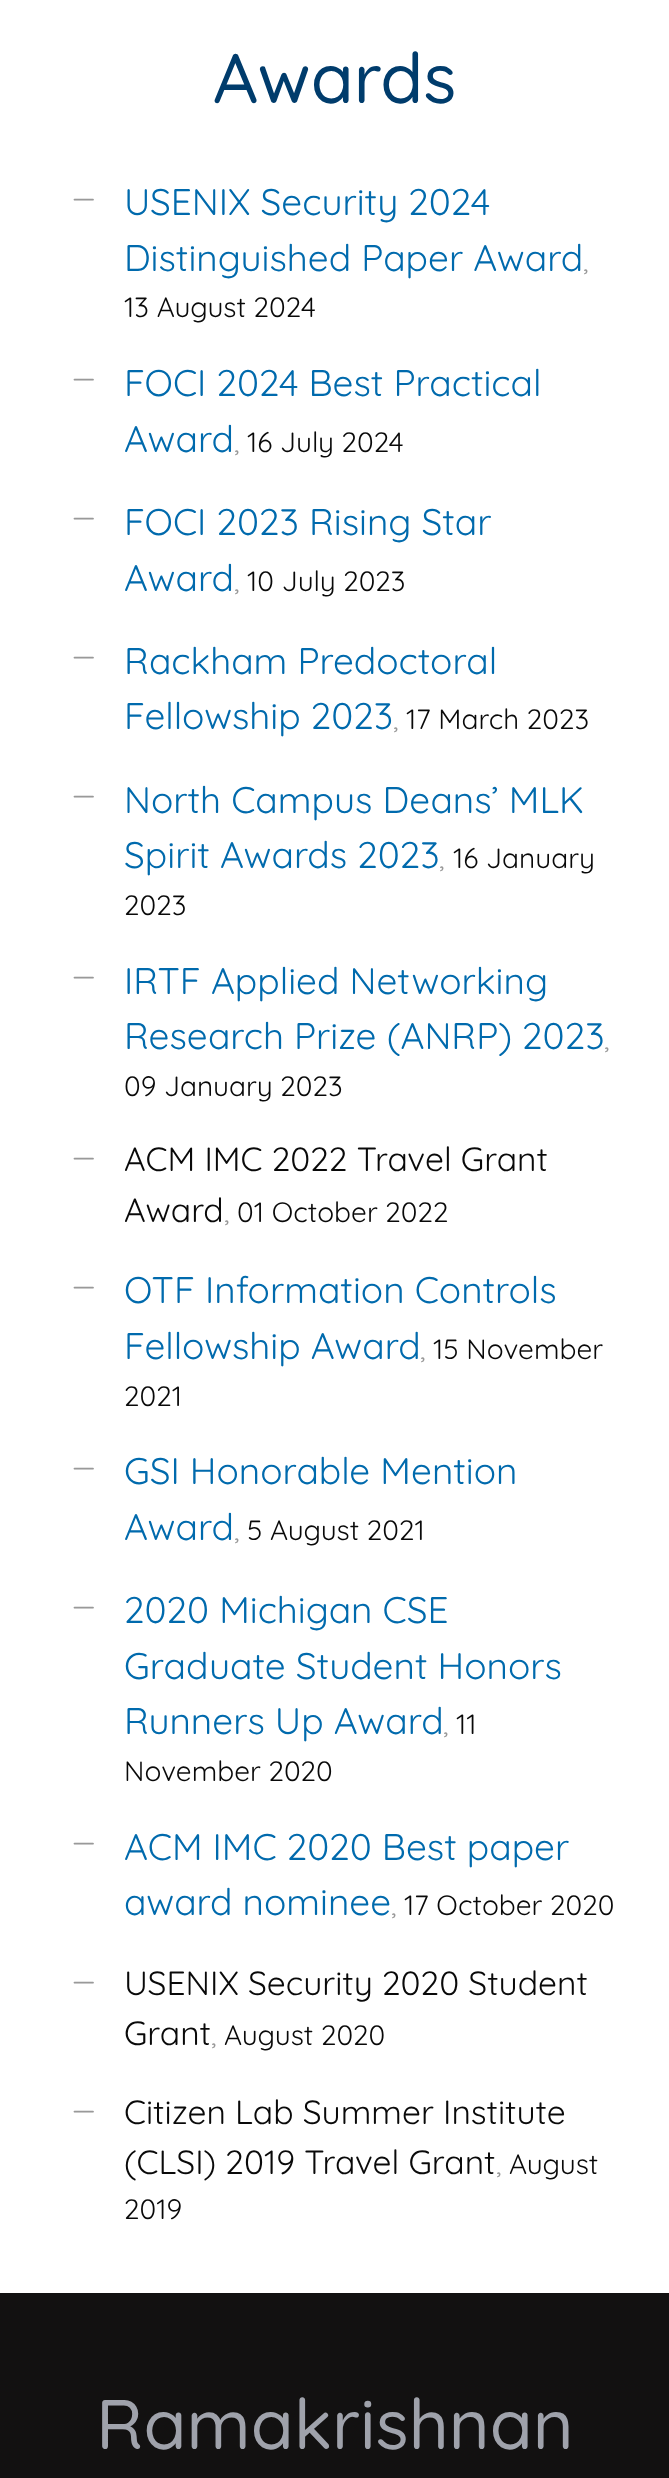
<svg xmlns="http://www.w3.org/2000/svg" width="669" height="2478">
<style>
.a{font:500 70px Quicksand;fill:#003c6c}
.b{font:28px Quicksand;fill:#999}
.c{font:37px Quicksand;fill:#006aad}
.d{font:28px Quicksand;fill:#090909}
.e{font:33.6px Quicksand;fill:#090909}
.f{font:500 70px Quicksand;fill:#9fa2ab}
</style>
<rect width="100%" height="100%" fill="#fff"/>
<path fill="#121111" d="M0 2293h669v185H0z"/>
<text class="a" x="213" y="103">Awards</text>
<text class="b" x="72" y="207">—</text>
<text class="c" x="124" y="215">USENIX Security 2024</text>
<text class="c" x="124" y="271">Distinguished Paper Award</text>
<text class="b" x="583" y="271">,</text>
<text class="d" x="124" y="317">13 August 2024</text>
<text class="b" x="72" y="387">—</text>
<text class="c" x="124" y="396">FOCI 2024 Best Practical</text>
<text class="c" x="124" y="452">Award</text>
<text class="b" x="234" y="452">,</text>
<text class="d" x="247" y="452">16 July 2024</text>
<text class="b" x="72" y="526">—</text>
<text class="c" x="124" y="535">FOCI 2023 Rising Star</text>
<text class="c" x="124" y="591">Award</text>
<text class="b" x="234" y="591">,</text>
<text class="d" x="247" y="591">10 July 2023</text>
<text class="b" x="72" y="665">—</text>
<text class="c" x="124" y="674">Rackham Predoctoral</text>
<text class="c" x="124" y="729">Fellowship 2023</text>
<text class="b" x="393" y="729">,</text>
<text class="d" x="406" y="729">17 March 2023</text>
<text class="b" x="72" y="804">—</text>
<text class="c" x="124" y="813">North Campus Deans’ MLK</text>
<text class="c" x="124" y="868">Spirit Awards 2023</text>
<text class="b" x="439" y="868">,</text>
<text class="d" x="453" y="868">16 January</text>
<text class="d" x="124" y="915">2023</text>
<text class="b" x="72" y="985">—</text>
<text class="c" x="124" y="994">IRTF Applied Networking</text>
<text class="c" x="124" y="1049">Research Prize (ANRP) 2023</text>
<text class="b" x="604" y="1049">,</text>
<text class="d" x="124" y="1096">09 January 2023</text>
<text class="b" x="72" y="1166">—</text>
<text class="e" x="124" y="1171">ACM IMC 2022 Travel Grant</text>
<text class="e" x="124" y="1222">Award</text>
<text class="b" x="224" y="1222">,</text>
<text class="d" x="237" y="1222">01 October 2022</text>
<text class="b" x="72" y="1295">—</text>
<text class="c" x="124" y="1303">OTF Information Controls</text>
<text class="c" x="124" y="1359">Fellowship Award</text>
<text class="b" x="420" y="1359">,</text>
<text class="d" x="433" y="1359">15 November</text>
<text class="d" x="124" y="1406">2021</text>
<text class="b" x="72" y="1476">—</text>
<text class="c" x="124" y="1484">GSI Honorable Mention</text>
<text class="c" x="124" y="1540">Award</text>
<text class="b" x="234" y="1540">,</text>
<text class="d" x="247" y="1540">5 August 2021</text>
<text class="b" x="72" y="1615">—</text>
<text class="c" x="124" y="1623">2020 Michigan CSE</text>
<text class="c" x="124" y="1679">Graduate Student Honors</text>
<text class="c" x="124" y="1734">Runners Up Award</text>
<text class="d" x="456" y="1734">11</text>
<text class="b" x="443" y="1734">,</text>
<text class="d" x="124" y="1781">November 2020</text>
<text class="b" x="72" y="1851">—</text>
<text class="c" x="124" y="1860">ACM IMC 2020 Best paper</text>
<text class="c" x="124" y="1915">award nominee</text>
<text class="b" x="391" y="1915">,</text>
<text class="d" x="404" y="1915">17 October 2020</text>
<text class="b" x="72" y="1990">—</text>
<text class="e" x="124" y="1995">USENIX Security 2020 Student</text>
<text class="e" x="124" y="2045">Grant</text>
<text class="b" x="211" y="2045">,</text>
<text class="d" x="224" y="2045">August 2020</text>
<text class="b" x="72" y="2119">—</text>
<text class="e" x="124" y="2124">Citizen Lab Summer Institute</text>
<text class="e" x="124" y="2174">(CLSI) 2019 Travel Grant</text>
<text class="b" x="496" y="2174">,</text>
<text class="d" x="509" y="2174">August</text>
<text class="d" x="124" y="2219">2019</text>
<text class="f" x="96" y="2449">Ramakrishnan</text>
</svg>
